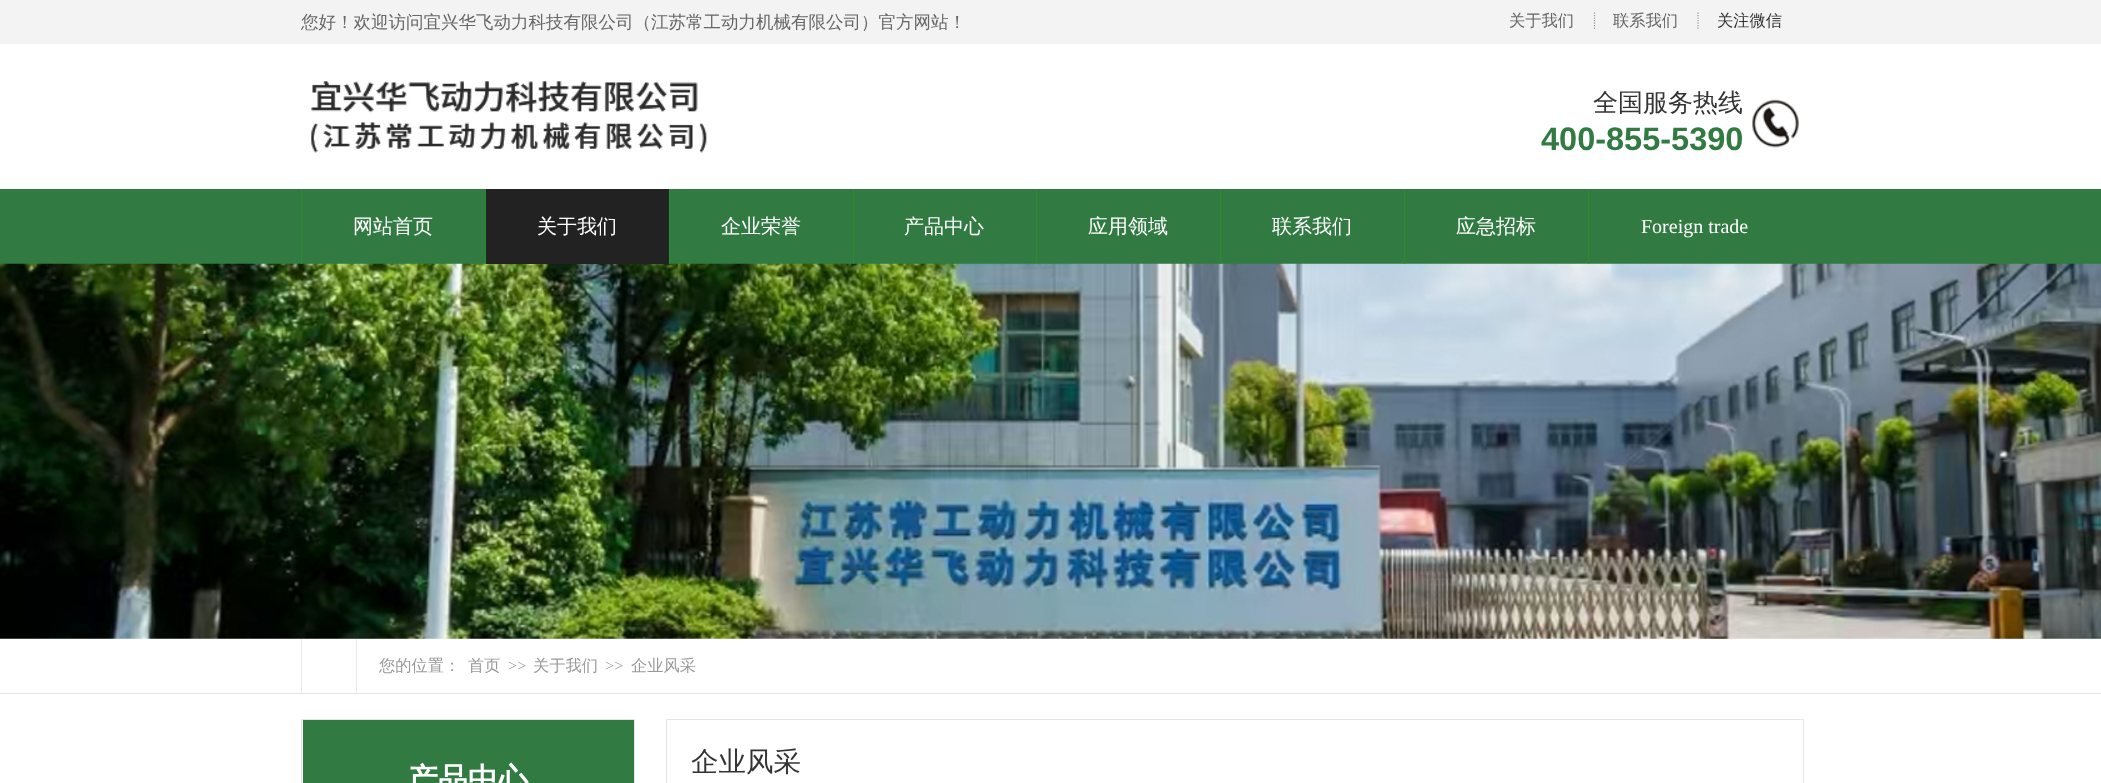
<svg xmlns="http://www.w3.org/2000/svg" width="2101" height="783">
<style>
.a{font:500 17.5px WenQuanYi Zen Hei;fill:#666}
.b{font:500 16.25px WenQuanYi Zen Hei;fill:#666}
.c{font:500 16.25px WenQuanYi Zen Hei;fill:#333}
.d{font:500 25px WenQuanYi Zen Hei;fill:#333}
.e{font:bold 32.5px Liberation Sans;fill:#317a42}
.f{font:500 20px WenQuanYi Zen Hei;fill:#fff}
.g{font:20px Liberation Serif;fill:#fff}
.h{font:500 16.25px WenQuanYi Zen Hei;fill:#999}
.i{font:16.25px Liberation Serif;fill:#999}
.j{font:bold 30px WenQuanYi Zen Hei;fill:#fff}
.k{font:500 27.5px WenQuanYi Zen Hei;fill:#333}
</style>
<rect width="100%" height="100%" fill="#fff"/>
<path fill="#f3f3f3" d="M0 0h2101v44H0z"/>
<path fill="none" stroke="#999" stroke-width="1.2" stroke-dasharray="1.25 1.25" d="M1594.5 12.5v17.5"/>
<path fill="none" stroke="#999" stroke-width="1.2" stroke-dasharray="1.25 1.25" d="M1698 12.5v17.5"/>
<image href="1.png" x="311" y="81" width="396" height="72"/>
<image href="2.png" x="1752" y="99" width="48" height="49"/>
<path fill="#317a42" d="M0 189h2101v75H0z"/>
<image href="3.png" x="0" y="263" width="2101" height="376"/>
<path fill="#2b8c2b" d="M301 189h1v75H301z"/>
<path fill="#222" d="M486 189h183v75H486z"/>
<path fill="#2b8c2b" d="M485 189h1v75H485z"/>
<path fill="#2b8c2b" d="M669 189h1v75H669z"/>
<path fill="#2b8c2b" d="M853 189h1v75H853z"/>
<path fill="#2b8c2b" d="M1036 189h1v75H1036z"/>
<path fill="#2b8c2b" d="M1220 189h1v75H1220z"/>
<path fill="#2b8c2b" d="M1404 189h1v75H1404z"/>
<path fill="#2b8c2b" d="M1588 189h1v75H1588z"/>
<path fill="#e4e4e4" d="M0 693h2101v1H0z"/>
<path fill="#eaeaea" d="M356 639h1v54H356z"/>
<path fill="#eaeaea" d="M301 639h1v54H301z"/>
<path fill="none" stroke="#e4e4e4" d="M301.5 719.5h333v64H301.5z"/>
<path fill="#317a42" d="M303 720h331v63H303z"/>
<path fill="none" stroke="#e4e4e4" d="M666.5 719.5h1137v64H666.5z"/>
<text class="a" x="301" y="28">您好！欢迎访问宜兴华飞动力科技有限公司（江苏常工动力机械有限公司）官方网站！</text>
<text class="b" x="1509" y="26">关于我们</text>
<text class="b" x="1613" y="26">联系我们</text>
<text class="c" x="1717" y="26">关注微信</text>
<text class="d" x="1593" y="111">全国服务热线</text>
<text class="e" x="1541" y="150">400-855-5390</text>
<text class="f" x="353" y="233">网站首页</text>
<text class="f" x="537" y="233">关于我们</text>
<text class="f" x="721" y="233">企业荣誉</text>
<text class="f" x="904" y="233">产品中心</text>
<text class="f" x="1088" y="233">应用领域</text>
<text class="f" x="1272" y="233">联系我们</text>
<text class="f" x="1456" y="233">应急招标</text>
<text class="g" x="1641" y="233">Foreign trade</text>
<text class="h" x="379" y="671">您的位置：</text>
<text class="h" x="468" y="671">首页</text>
<text class="i" x="508" y="671">&gt;&gt;</text>
<text class="h" x="533" y="671">关于我们</text>
<text class="i" x="605" y="671">&gt;&gt;</text>
<text class="h" x="631" y="671">企业风采</text>
<text class="j" x="408" y="789">产品中心</text>
<text class="k" x="691" y="771">企业风采</text>
</svg>
